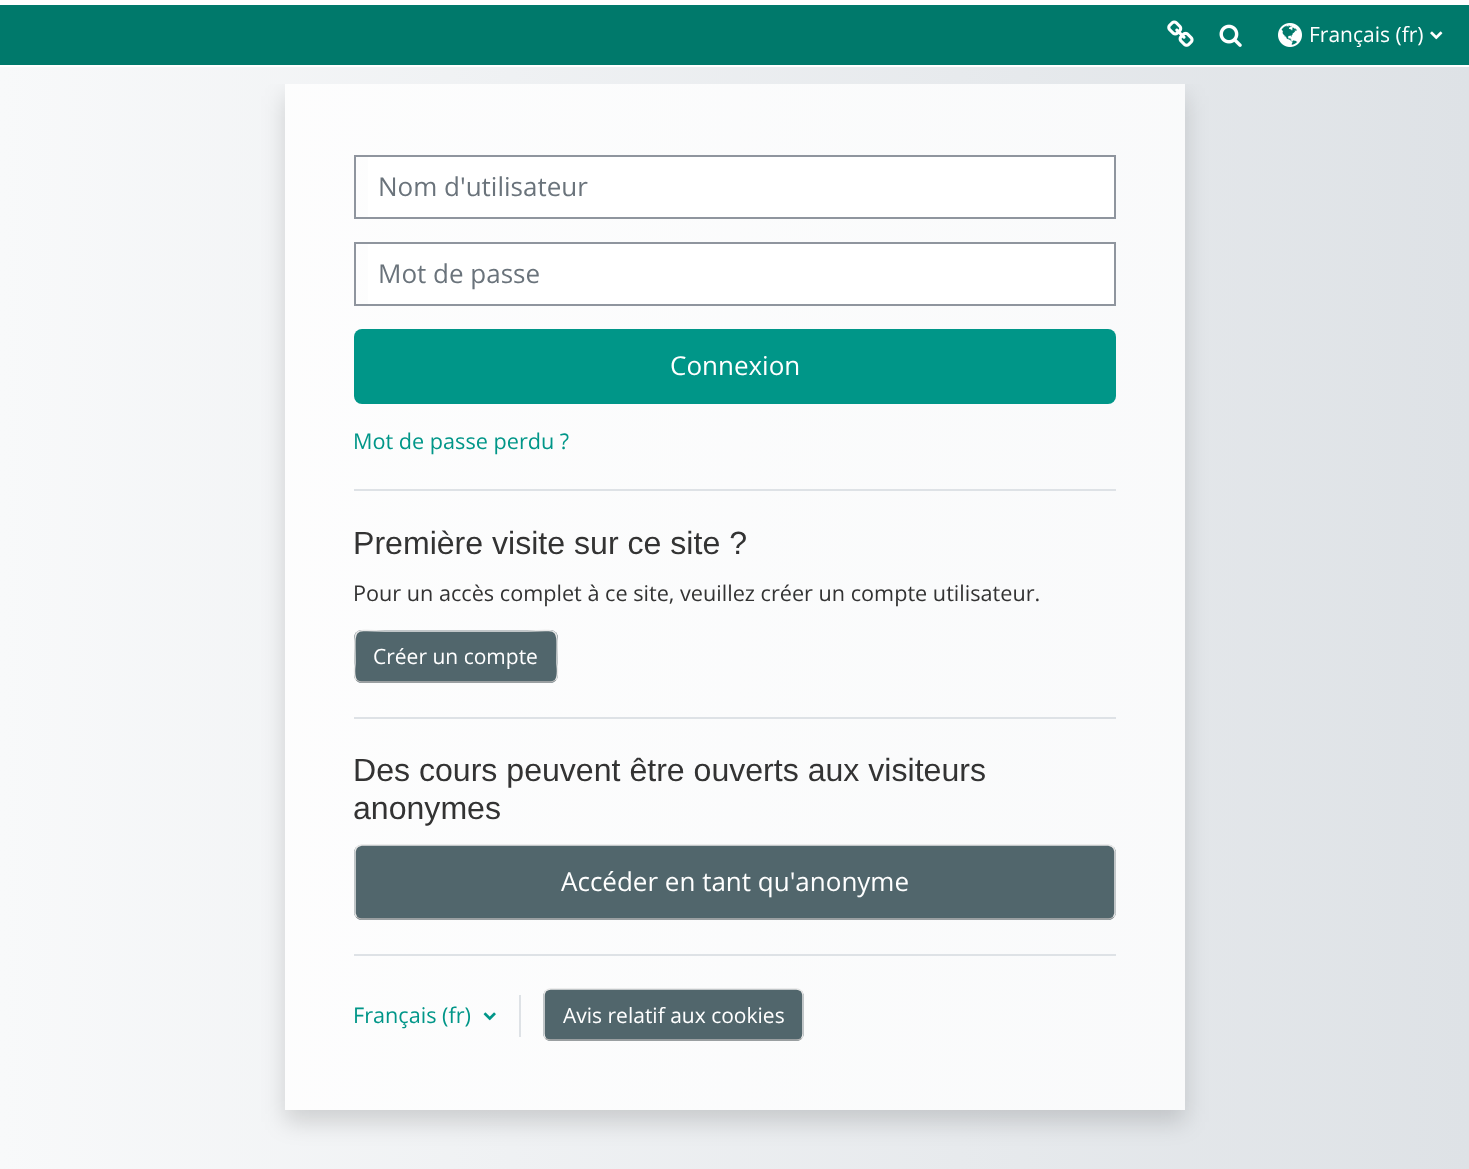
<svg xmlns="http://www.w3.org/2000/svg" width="1469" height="1169">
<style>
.a{font:21px Open Sans;fill:#fff}
.b{font:26px Open Sans;fill:#6a737b}
.c{font:26px Open Sans;fill:#fff}
.d{font:21.65px Open Sans;fill:#009688}
.e{font:32.1px Liberation Sans;fill:#333}
.f{font:21.65px Open Sans;fill:#333}
</style>
<defs>
<linearGradient id="g1" gradientUnits="userSpaceOnUse" x1="0" y1="595" x2="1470" y2="595"><stop offset="0" stop-color="#f8f9fa"/><stop offset="1" stop-color="#dee2e6"/></linearGradient>
<linearGradient id="g2" gradientUnits="userSpaceOnUse" x1="0" y1="595" x2="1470" y2="595"><stop offset="0" stop-color="#fefefe"/><stop offset="1" stop-color="#f8f9fa"/></linearGradient>
<clipPath id="clip1"><path d="M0 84h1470v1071H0z"/></clipPath>
<clipPath id="clip2"><path d="M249 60h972v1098h-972zm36 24h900v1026h-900z" clip-rule="evenodd"/></clipPath>
</defs>
<rect width="100%" height="100%" fill="#fff"/>
<path fill="url(#g1)" d="M0 67h1469v1102H0z"/>
<path fill="url(#g2)" d="M285 84h900v1026H285z"/>
<g clip-path="url(#clip1)">
<g clip-path="url(#clip2)">
<path fill="#00000026" filter="blur(11.5px)" d="M285 96h900v1026H285z"/>
</g>
</g>
<path fill="#00796b" d="M0 5h1469v60H0z"/>
<image href="1.png" x="1167" y="20" width="27" height="27"/>
<image href="2.png" x="1219" y="24" width="23" height="23"/>
<image href="3.png" x="1278" y="23" width="24" height="24"/>
<image href="4.png" x="1430" y="31" width="13" height="9"/>
<path fill="#fff" d="M368 157h746v60H368z"/>
<path fill="none" stroke="#8f959e" stroke-width="2" d="M355 156h760v62H355z"/>
<path fill="#fff" d="M368 244h746v60H368z"/>
<path fill="none" stroke="#8f959e" stroke-width="2" d="M355 243h760v62H355z"/>
<rect fill="#009688" x="354" y="329" width="762" height="75" rx="8"/>
<path fill="#dee2e6" d="M354 489h762v2H354z"/>
<rect fill="#51666c" x="354" y="630" width="204" height="53" rx="8"/>
<path fill="none" stroke="#b3b3b3" stroke-width="1.5" d="M555.5 680c-1.5 1-3 2-5 2h-189c-2 0-3.5-1-5-2"/>
<path fill="none" stroke="#e6e6e6" stroke-width="1.5" d="M356.5 680c-3.5-4-1.5-13.5-1.5-17.5c0-39-5.5-31.5 38-31.5h126c43.5 0 38-7.5 38 31.5c0 4 2 13.5-1.5 17.5"/>
<path fill="#dee2e6" d="M354 717h762v2H354z"/>
<rect fill="#51666c" x="354" y="845" width="762" height="75" rx="8"/>
<path fill="none" stroke="#b3b3b3" stroke-width="1.5" d="M1113.5 917c-1.5 1-3 2-5 2h-747c-2 0-3.5-1-5-2"/>
<path fill="none" stroke="#e6e6e6" stroke-width="1.5" d="M356.5 917l-1.5-3.5v-62l1-3c1-2 3.5-3 5.5-3.5h747c2 .5 4.5 1.5 5.5 3.5l1 3v62l-1.5 3.5"/>
<path fill="#dee2e6" d="M354 954h762v2H354z"/>
<image href="5.png" x="483" y="1012" width="13" height="9"/>
<path fill="#dee2e6" d="M519 995h2v42H519z"/>
<rect fill="#51666c" x="543" y="989" width="261" height="52" rx="8"/>
<path fill="none" stroke="#b3b3b3" stroke-width="1.5" d="M801.5 1038.5c-1.5 1-3 1.5-5 1.5h-246c-2 0-3.5-.5-5-1.5"/>
<path fill="none" stroke="#e6e6e6" stroke-width="1.5" d="M545.5 1038.5c-1-1.5-1.5-3-1.5-5v-37.5c0-2 .5-3.5 1.5-5c1.5-1 3-2 5-2h246c2 0 3.5 1 5 2c1 1.5 1.5 3 1.5 5v37.5c0 2-.5 3.5-1.5 5"/>
<text class="a" x="1309" y="42">Français (fr)</text>
<text class="b" x="378" y="196">Nom d'utilisateur</text>
<text class="b" x="378" y="283">Mot de passe</text>
<text class="c" x="670" y="375">Connexion</text>
<text class="d" x="353" y="449">Mot de passe perdu ?</text>
<text class="e" x="353" y="554">Première visite sur ce site ?</text>
<text class="f" x="353" y="601">Pour un accès complet à ce site, veuillez créer un compte utilisateur.</text>
<text class="a" x="373" y="664">Créer un compte</text>
<text class="e" x="353" y="781">Des cours peuvent être ouverts aux visiteurs</text>
<text class="e" x="353" y="819">anonymes</text>
<text class="c" x="561" y="891">Accéder en tant qu'anonyme</text>
<text class="d" x="353" y="1023">Français (fr)</text>
<text class="a" x="563" y="1023">Avis relatif aux cookies</text>
</svg>
